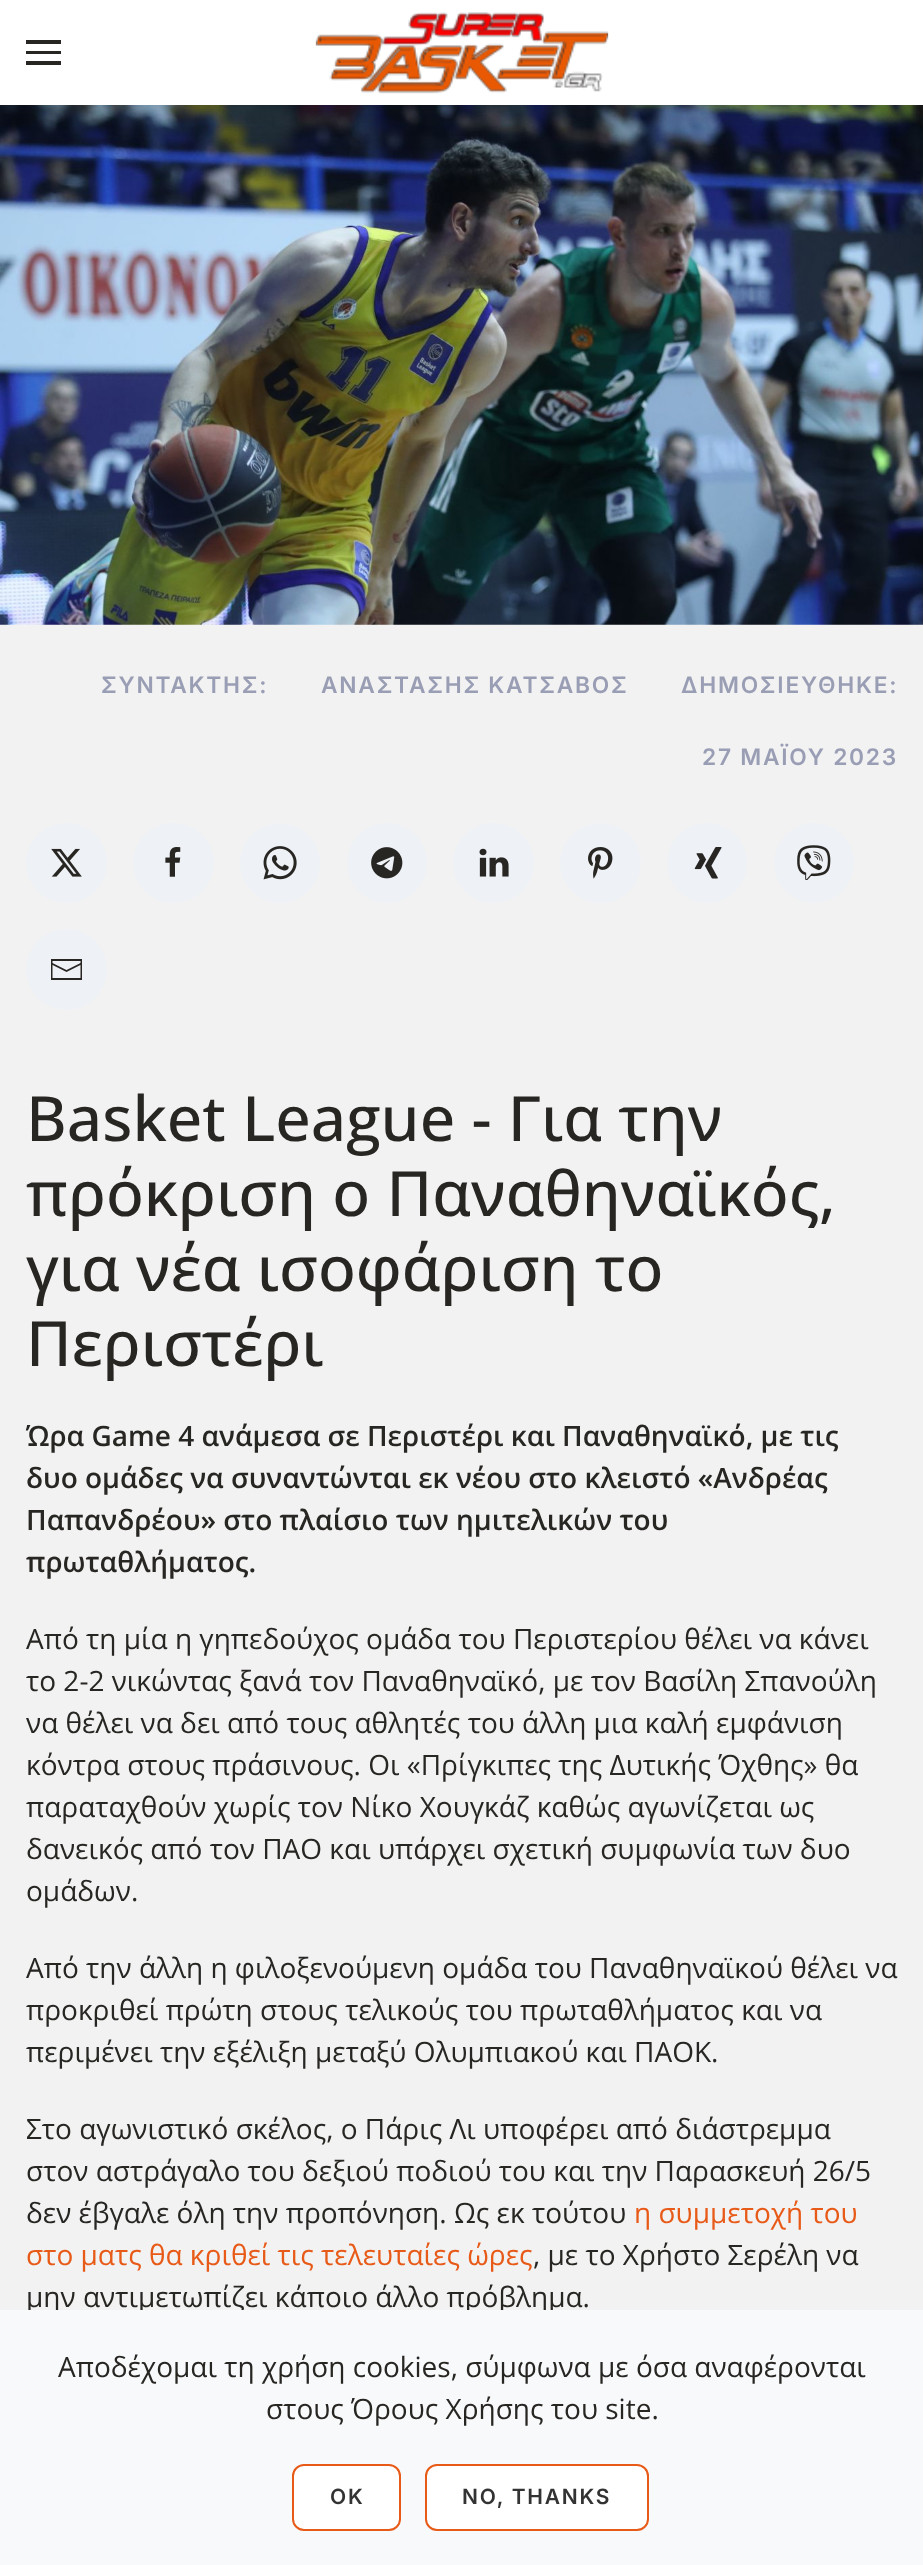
<svg xmlns="http://www.w3.org/2000/svg" width="923" height="2565">
<style>
.a{font:600 22.75px Inter;letter-spacing:1.75px;fill:#9a9eb5}
.b{font:500 62.5px Open Sans;fill:#282623}
.c{font:600 28px Open Sans;fill:#282623}
.d{font:28px Open Sans;fill:#282623}
.e{font:28px Open Sans;fill:#e85a18}
.f{font:600 21px Inter;letter-spacing:1.75px;fill:#333}
</style>
<rect width="100%" height="100%" fill="#f2f2f2"/>
<image href="2.png" x="0" y="105" width="923" height="520"/>
<path fill="#272c3f0f" filter="blur(13px)" d="M0 9h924v105H0z"/>
<path fill="#fff" d="M0 0h923v105H0z"/>
<path fill="#282623" d="M26 40h35v4H26z"/>
<path fill="#282623" d="M26 51h35v3H26z"/>
<path fill="#282623" d="M26 61h35v4H26z"/>
<image href="1.png" x="315" y="12" width="294" height="82"/>
<rect fill="#eef1f5" x="26" y="823" width="81" height="80" rx="40"/>
<image href="3.png" x="51" y="848" width="31" height="29"/>
<rect fill="#eef1f5" x="133" y="823" width="81" height="80" rx="40"/>
<image href="4.png" x="165" y="847" width="16" height="30"/>
<circle fill="#eef1f5" cx="280" cy="863" r="40"/>
<image href="5.png" x="263" y="846" width="34" height="34"/>
<circle fill="#eef1f5" cx="387" cy="863" r="40"/>
<image href="6.png" x="371" y="847" width="32" height="32"/>
<rect fill="#eef1f5" x="453" y="823" width="81" height="80" rx="40"/>
<image href="7.png" x="479" y="848" width="30" height="29"/>
<rect fill="#eef1f5" x="560" y="823" width="81" height="80" rx="40"/>
<image href="8.png" x="588" y="847" width="25" height="32"/>
<circle fill="#eef1f5" cx="707" cy="863" r="40"/>
<image href="9.png" x="694" y="847" width="28" height="32"/>
<circle fill="#eef1f5" cx="814" cy="863" r="40"/>
<image href="10.png" x="797" y="845" width="34" height="35"/>
<circle fill="#eef1f5" cx="66.5" cy="969.5" r="40.5"/>
<path fill="none" stroke="#282623" stroke-width="1.8" d="M51.5 963.5l15 7.5l15-7.5"/>
<path fill="#282623" d="M51 959v21h31v-21zm29.5 19h-28v-17h28z"/>
<text class="a" x="101" y="693">ΣΥΝΤΑΚΤΗΣ:</text>
<text class="a" x="321" y="693">ΑΝΑΣΤΑΣΗΣ ΚΑΤΣΑΒΟΣ</text>
<text class="a" x="681" y="693">ΔΗΜΟΣΙΕΥΘΗΚΕ:</text>
<text class="a" x="702" y="765">27 ΜΑΪΟΥ 2023</text>
<text class="b" x="26" y="1141">Basket League - Για την</text>
<text class="b" x="26" y="1216">πρόκριση ο Παναθηναϊκός,</text>
<text class="b" x="26" y="1291">για νέα ισοφάριση το</text>
<text class="b" x="26" y="1366">Περιστέρι</text>
<text class="c" x="26" y="1446">Ώρα Game 4 ανάμεσα σε Περιστέρι και Παναθηναϊκό, με τις</text>
<text class="c" x="26" y="1488">δυο ομάδες να συναντώνται εκ νέου στο κλειστό «Ανδρέας</text>
<text class="c" x="26" y="1530">Παπανδρέου» στο πλαίσιο των ημιτελικών του</text>
<text class="c" x="26" y="1572">πρωταθλήματος.</text>
<text class="d" x="26" y="1649">Από τη μία η γηπεδούχος ομάδα του Περιστερίου θέλει να κάνει</text>
<text class="d" x="26" y="1691">το 2-2 νικώντας ξανά τον Παναθηναϊκό, με τον Βασίλη Σπανούλη</text>
<text class="d" x="26" y="1733">να θέλει να δει από τους αθλητές του άλλη μια καλή εμφάνιση</text>
<text class="d" x="26" y="1775">κόντρα στους πράσινους. Οι «Πρίγκιπες της Δυτικής Όχθης» θα</text>
<text class="d" x="26" y="1817">παραταχθούν χωρίς τον Νίκο Χουγκάζ καθώς αγωνίζεται ως</text>
<text class="d" x="26" y="1859">δανεικός από τον ΠΑΟ και υπάρχει σχετική συμφωνία των δυο</text>
<text class="d" x="26" y="1901">ομάδων.</text>
<text class="d" x="26" y="1978">Από την άλλη η φιλοξενούμενη ομάδα του Παναθηναϊκού θέλει να</text>
<text class="d" x="26" y="2020">προκριθεί πρώτη στους τελικούς του πρωταθλήματος και να</text>
<text class="d" x="26" y="2062">περιμένει την εξέλιξη μεταξύ Ολυμπιακού και ΠΑΟΚ.</text>
<text class="d" x="26" y="2139">Στο αγωνιστικό σκέλος, ο Πάρις Λι υποφέρει από διάστρεμμα</text>
<text class="d" x="26" y="2181">στον αστράγαλο του δεξιού ποδιού του και την Παρασκευή 26/5</text>
<text class="d" x="26" y="2223">δεν έβγαλε όλη την προπόνηση. Ως εκ τούτου</text>
<text class="e" x="634" y="2223">η συμμετοχή του</text>
<text class="e" x="26" y="2265">στο ματς θα κριθεί τις τελευταίες ώρες</text>
<text class="d" x="533" y="2265">, με το Χρήστο Σερέλη να</text>
<text class="d" x="26" y="2307">μην αντιμετωπίζει κάποιο άλλο πρόβλημα.</text>
<path fill="#f8f9fb" d="M0 2310h923v255H0z"/>
<text class="d" x="58" y="2377">Αποδέχομαι τη χρήση cookies, σύμφωνα με όσα αναφέρονται</text>
<text class="d" x="266" y="2419">στους Όρους Χρήσης του site.</text>
<rect fill="#fff" stroke="#e85a18" stroke-width="2" x="293" y="2465" width="107" height="65" rx="11"/>
<text class="f" x="330" y="2504">OK</text>
<rect fill="#fff" stroke="#e85a18" stroke-width="2" x="426" y="2465" width="222" height="65" rx="11"/>
<text class="f" x="462" y="2504">NO, THANKS</text>
</svg>
